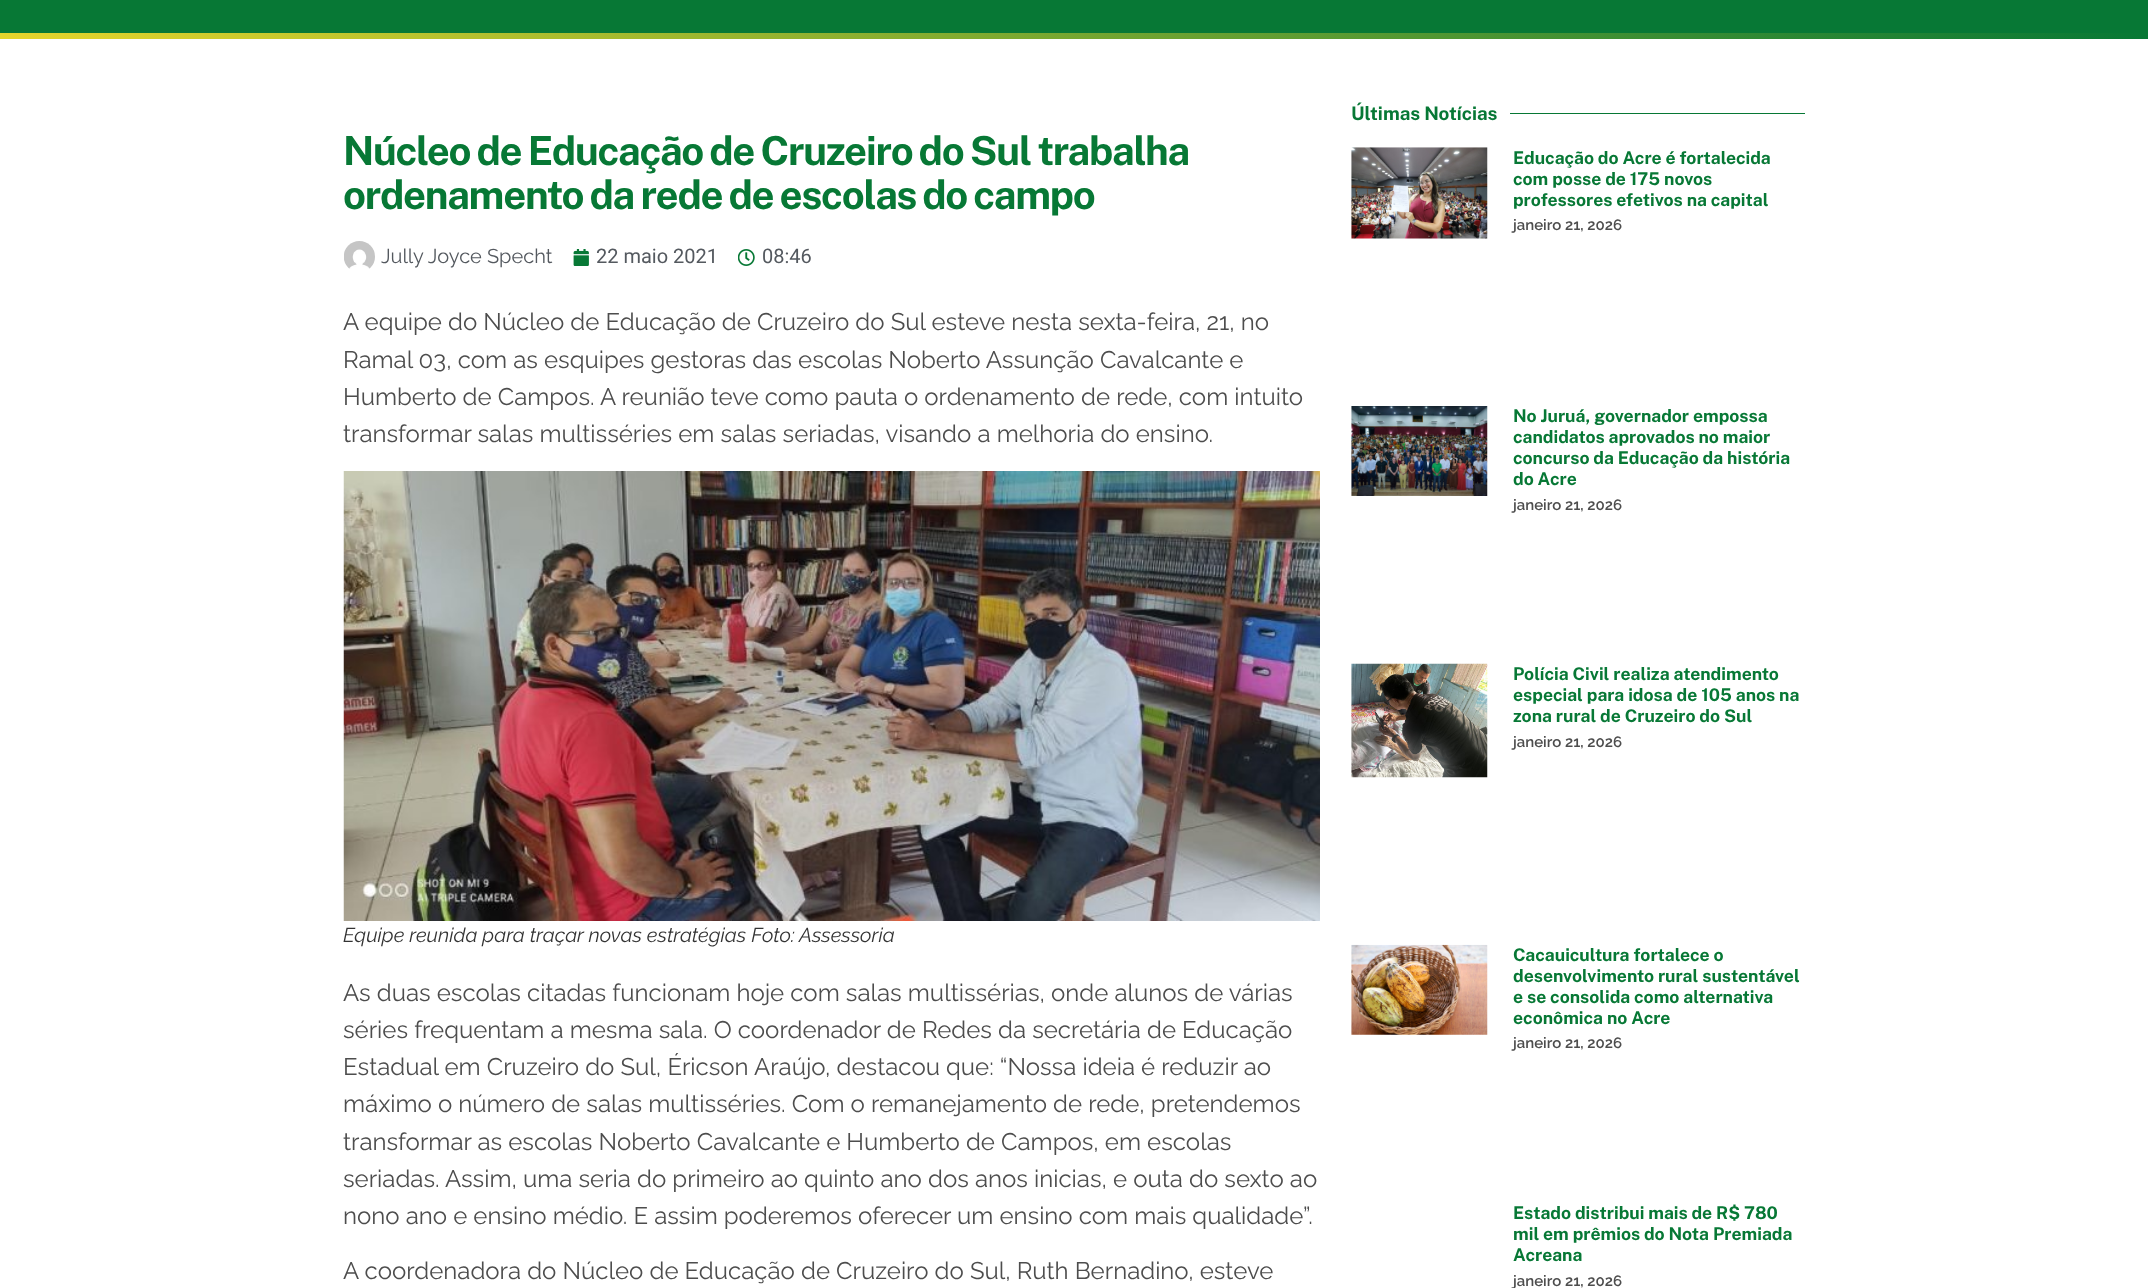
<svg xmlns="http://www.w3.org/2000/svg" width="2148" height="1288">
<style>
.a{font:bold 40px Public Sans;letter-spacing:-1.25px;fill:#077835}
.b{font:20px Raleway;fill:#54595f}
.c{font:20px Roboto;fill:#54595f}
.d{font:24px Raleway;fill:#4d4d4d}
.e{font:italic 20px Raleway;fill:#333}
.f{font:bold 18.75px Public Sans;fill:#077835}
.g{font:bold 17.5px Public Sans;fill:#077835}
.h{font:600 15px Raleway;fill:#4d4d4d}
</style>
<defs>
<linearGradient id="g1" gradientUnits="userSpaceOnUse" x1="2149" y1="36" x2="0" y2="36"><stop offset="0" stop-color="#077835"/><stop offset="1" stop-color="#e5d52c"/></linearGradient>
</defs>
<rect width="100%" height="100%" fill="#fff"/>
<path fill="#077835" d="M0 0h2148v33H0z"/>
<path fill="url(#g1)" d="M0 33h2148v6H0z"/>
<image href="1.png" x="344" y="241" width="31" height="28"/>
<image href="2.png" x="573" y="249" width="16" height="17"/>
<image href="3.png" x="738" y="249" width="17" height="17"/>
<image href="4.png" x="343" y="471" width="977" height="450"/>
<path fill="#077835" d="M1510 113h295v1H1510z"/>
<image href="5.png" x="1351" y="147" width="137" height="92"/>
<image href="6.png" x="1351" y="406" width="137" height="90"/>
<image href="7.png" x="1351" y="663" width="137" height="115"/>
<image href="8.png" x="1351" y="944" width="137" height="91"/>
<text class="a" x="343" y="165" word-spacing="-1.25">Núcleo de Educação de Cruzeiro do Sul trabalha</text>
<text class="a" x="343" y="209" word-spacing="-1.25">ordenamento da rede de escolas do campo</text>
<text class="b" x="381" y="263">Jully Joyce Specht</text>
<text class="c" x="596" y="263">22 maio 2021</text>
<text class="c" x="762" y="263">08:46</text>
<text class="d" x="343" y="330">A equipe do Núcleo de Educação de Cruzeiro do Sul esteve nesta sexta-feira, 21, no</text>
<text class="d" x="343" y="368">Ramal 03, com as esquipes gestoras das escolas Noberto Assunção Cavalcante e</text>
<text class="d" x="343" y="405">Humberto de Campos. A reunião teve como pauta o ordenamento de rede, com intuito</text>
<text class="d" x="343" y="442">transformar salas multisséries em salas seriadas, visando a melhoria do ensino.</text>
<text class="e" x="343" y="942">Equipe reunida para traçar novas estratégias Foto: Assessoria</text>
<text class="d" x="343" y="1001">As duas escolas citadas funcionam hoje com salas multissérias, onde alunos de várias</text>
<text class="d" x="343" y="1038">séries frequentam a mesma sala. O coordenador de Redes da secretária de Educação</text>
<text class="d" x="343" y="1075">Estadual em Cruzeiro do Sul, Éricson Araújo, destacou que: “Nossa ideia é reduzir ao</text>
<text class="d" x="343" y="1112">máximo o número de salas multisséries. Com o remanejamento de rede, pretendemos</text>
<text class="d" x="343" y="1150">transformar as escolas Noberto Cavalcante e Humberto de Campos, em escolas</text>
<text class="d" x="343" y="1187">seriadas. Assim, uma seria do primeiro ao quinto ano dos anos inicias, e outa do sexto ao</text>
<text class="d" x="343" y="1224">nono ano e ensino médio. E assim poderemos oferecer um ensino com mais qualidade”.</text>
<text class="d" x="343" y="1279">A coordenadora do Núcleo de Educação de Cruzeiro do Sul, Ruth Bernadino, esteve</text>
<text class="f" x="1351" y="120">Últimas Notícias</text>
<text class="g" x="1513" y="164">Educação do Acre é fortalecida</text>
<text class="g" x="1513" y="185">com posse de 175 novos</text>
<text class="g" x="1513" y="206">professores efetivos na capital</text>
<text class="h" x="1513" y="230">janeiro 21, 2026</text>
<text class="g" x="1513" y="422">No Juruá, governador empossa</text>
<text class="g" x="1513" y="443">candidatos aprovados no maior</text>
<text class="g" x="1513" y="464">concurso da Educação da história</text>
<text class="g" x="1513" y="485">do Acre</text>
<text class="h" x="1513" y="510">janeiro 21, 2026</text>
<text class="g" x="1513" y="680">Polícia Civil realiza atendimento</text>
<text class="g" x="1513" y="701">especial para idosa de 105 anos na</text>
<text class="g" x="1513" y="722">zona rural de Cruzeiro do Sul</text>
<text class="h" x="1513" y="747">janeiro 21, 2026</text>
<text class="g" x="1513" y="961">Cacauicultura fortalece o</text>
<text class="g" x="1513" y="982">desenvolvimento rural sustentável</text>
<text class="g" x="1513" y="1003">e se consolida como alternativa</text>
<text class="g" x="1513" y="1024">econômica no Acre</text>
<text class="h" x="1513" y="1048">janeiro 21, 2026</text>
<text class="g" x="1513" y="1219">Estado distribui mais de R$ 780</text>
<text class="g" x="1513" y="1240">mil em prêmios do Nota Premiada</text>
<text class="g" x="1513" y="1261">Acreana</text>
<text class="h" x="1513" y="1286">janeiro 21, 2026</text>
</svg>
